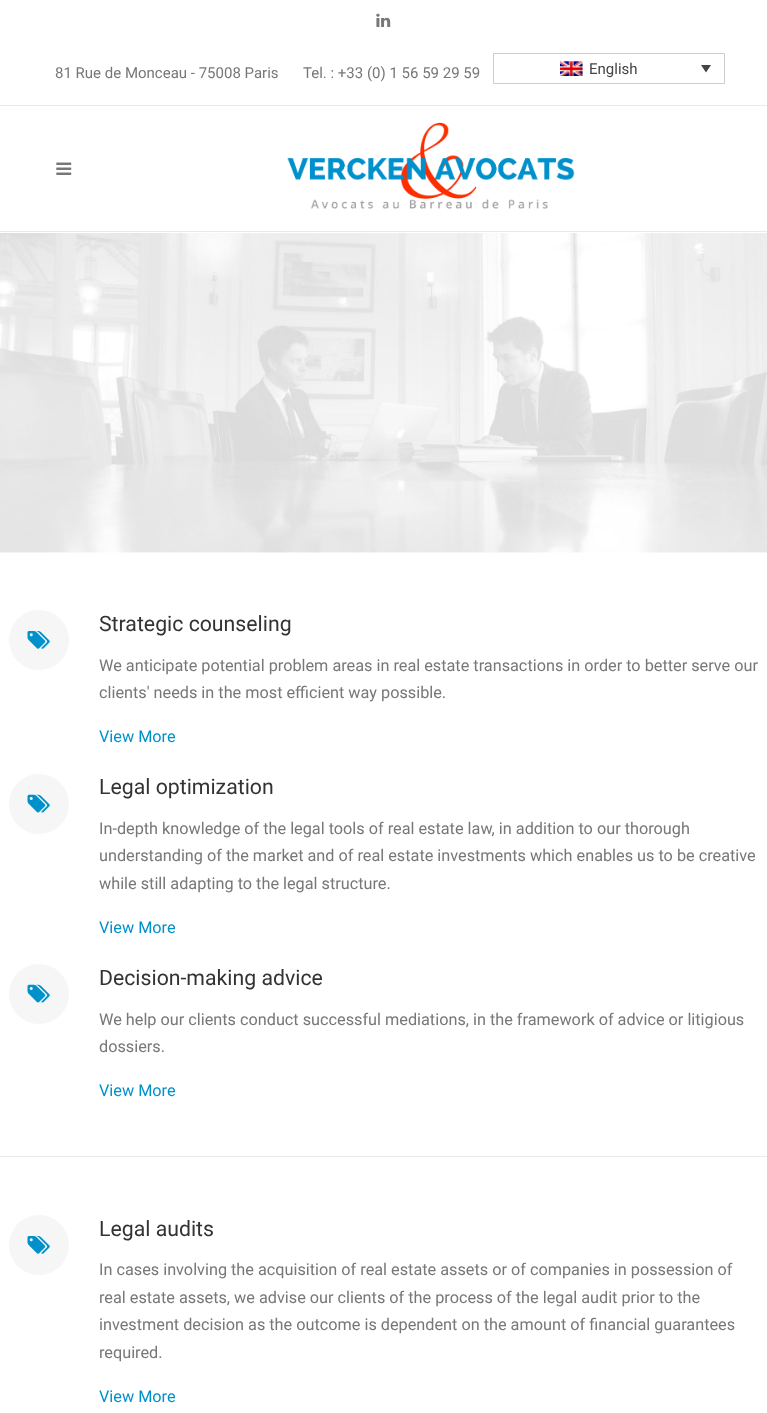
<svg xmlns="http://www.w3.org/2000/svg" width="767" height="1413">
<style>
.a{font:15px Roboto;fill:#777}
.b{font:15px Roboto;fill:#444}
.c{font:21.25px Roboto;fill:#333}
.d{font:16.25px Roboto;fill:#777}
.e{font:16.25px Roboto;fill:#0091ca}
</style>
<rect width="100%" height="100%" fill="#fff"/>
<path fill="#eaeaea" d="M0 105h767v1H0z"/>
<image href="1.png" x="376" y="13" width="15" height="14"/>
<path fill="none" stroke="#cdcdcd" d="M493.5 53.5h231v30H493.5z"/>
<image href="2.png" x="560" y="61" width="23" height="15"/>
<path fill="#444" d="M701 65h10l-5 7.5z"/>
<path fill="#eaeaea" d="M0 231h767v1H0z"/>
<image href="3.png" x="56" y="162" width="16" height="13"/>
<image href="4.png" x="287" y="122" width="288" height="87"/>
<image href="5.png" x="0" y="233" width="767" height="320"/>
<path fill="#eaeaea" d="M0 1156h767v1H0z"/>
<circle fill="#f6f6f6" cx="39" cy="640" r="30"/>
<image href="6.png" x="27" y="631" width="23" height="18"/>
<circle fill="#f6f6f6" cx="39" cy="804" r="30"/>
<image href="7.png" x="27" y="794" width="23" height="19"/>
<circle fill="#f6f6f6" cx="39" cy="994" r="30"/>
<image href="7.png" x="27" y="984" width="23" height="19"/>
<circle fill="#f6f6f6" cx="39" cy="1245" r="30"/>
<image href="6.png" x="27" y="1236" width="23" height="18"/>
<text class="a" x="55" y="78">81 Rue de Monceau - 75008 Paris</text>
<text class="a" x="303" y="78">Tel. : +33 (0) 1 56 59 29 59</text>
<text class="b" x="589" y="74">English</text>
<text class="c" x="99" y="631">Strategic counseling</text>
<text class="d" x="99" y="671">We anticipate potential problem areas in real estate transactions in order to better serve our</text>
<text class="d" x="99" y="698">clients' needs in the most efficient way possible.</text>
<text class="e" x="99" y="742">View More</text>
<text class="c" x="99" y="794">Legal optimization</text>
<text class="d" x="99" y="834">In-depth knowledge of the legal tools of real estate law, in addition to our thorough</text>
<text class="d" x="99" y="861">understanding of the market and of real estate investments which enables us to be creative</text>
<text class="d" x="99" y="889">while still adapting to the legal structure.</text>
<text class="e" x="99" y="933">View More</text>
<text class="c" x="99" y="985">Decision-making advice</text>
<text class="d" x="99" y="1025">We help our clients conduct successful mediations, in the framework of advice or litigious</text>
<text class="d" x="99" y="1052">dossiers.</text>
<text class="e" x="99" y="1096">View More</text>
<text class="c" x="99" y="1236">Legal audits</text>
<text class="d" x="99" y="1275">In cases involving the acquisition of real estate assets or of companies in possession of</text>
<text class="d" x="99" y="1303">real estate assets, we advise our clients of the process of the legal audit prior to the</text>
<text class="d" x="99" y="1330">investment decision as the outcome is dependent on the amount of financial guarantees</text>
<text class="d" x="99" y="1358">required.</text>
<text class="e" x="99" y="1402">View More</text>
</svg>
